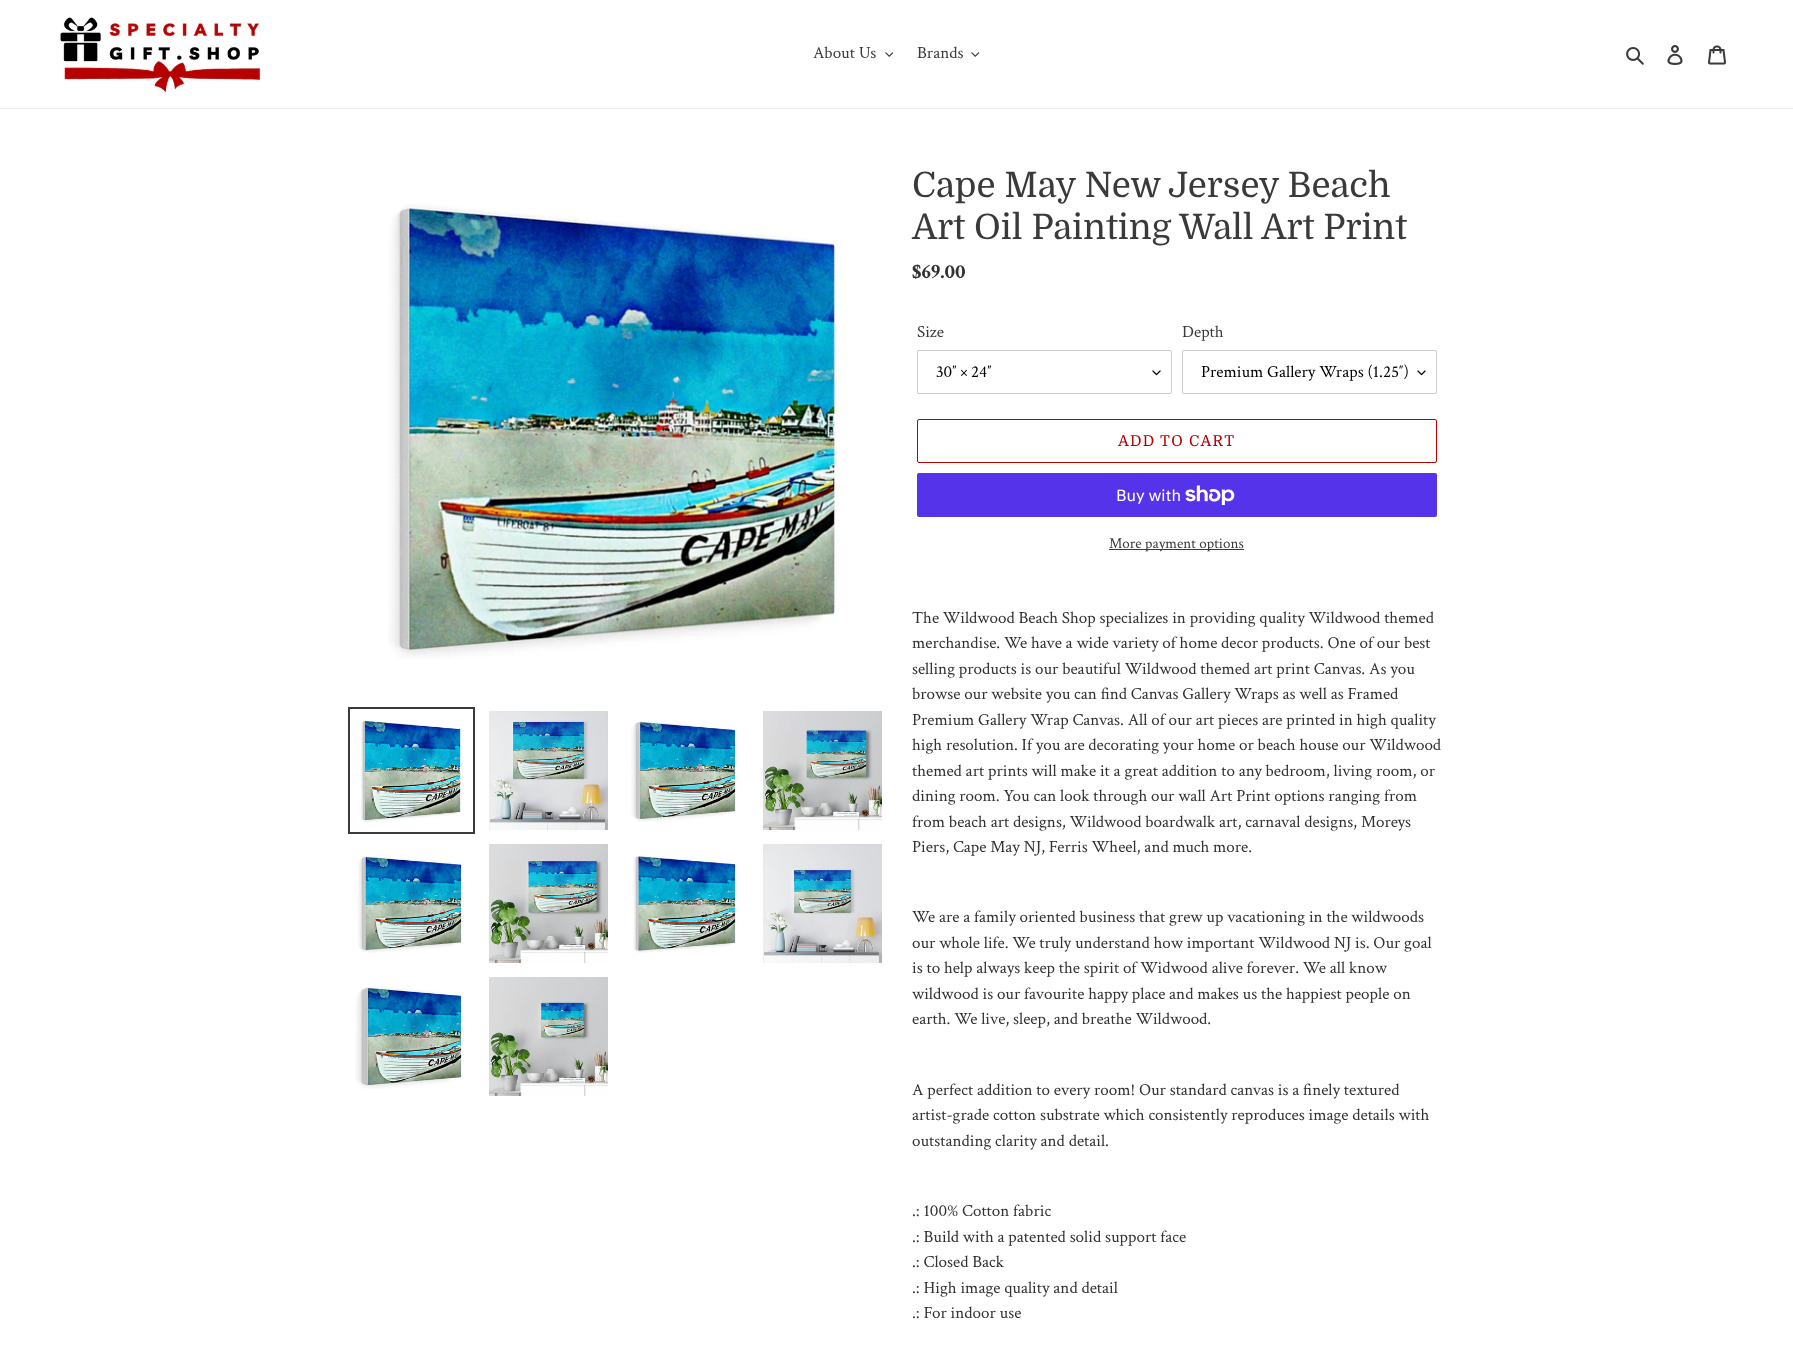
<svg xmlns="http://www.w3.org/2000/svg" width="1793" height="1364">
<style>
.a{font:17px Crimson Text;fill:#3a3a3a}
.b{font:35px Domine;fill:#3a3a3a}
.c{font:bold 21px Crimson Text;fill:#333232}
.d{font:17px Crimson Text;fill:#000}
.e{font:15px Domine;letter-spacing:1.25px;fill:#b60101}
.f{font:16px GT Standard;fill:#fff}
.g{font:15px Crimson Text;fill:#3a3a3a}
.h{font:17px Crimson Text;fill:#333232}
</style>
<rect width="100%" height="100%" fill="#fff"/>
<path fill="#ebebeb" d="M0 108h1793v1H0z"/>
<image href="1.png" x="60" y="17" width="201" height="76"/>
<image href="2.png" x="885" y="52" width="8" height="5"/>
<image href="3.png" x="971" y="52" width="9" height="5"/>
<image href="4.png" x="1626" y="47" width="18" height="18"/>
<image href="5.png" x="1667" y="45" width="16" height="20"/>
<image href="6.png" x="1708" y="45" width="18" height="20"/>
<image href="7.png" x="388" y="203" width="451" height="456"/>
<path fill="none" stroke="#3a3a3a" stroke-width="2" d="M349 708h125v125H349z"/>
<image href="8.png" x="360" y="720" width="102" height="103"/>
<image href="9.png" x="489" y="711" width="119" height="119"/>
<image href="10.png" x="631" y="720" width="108" height="102"/>
<image href="11.png" x="763" y="711" width="119" height="119"/>
<image href="12.png" x="358" y="856" width="107" height="97"/>
<image href="13.png" x="489" y="844" width="119" height="119"/>
<image href="14.png" x="633" y="855" width="106" height="98"/>
<image href="15.png" x="763" y="844" width="119" height="119"/>
<image href="16.png" x="355" y="986" width="109" height="103"/>
<image href="17.png" x="489" y="977" width="119" height="119"/>
<image href="18.png" x="1152" y="370" width="9" height="6"/>
<rect fill="none" stroke="#ccc" x="917.5" y="350.5" width="254" height="43" rx="1.5"/>
<image href="18.png" x="1417" y="370" width="9" height="6"/>
<rect fill="none" stroke="#ccc" x="1182.5" y="350.5" width="254" height="43" rx="1.5"/>
<rect fill="none" stroke="#b60101" x="917.5" y="419.5" width="519" height="43" rx="1.5"/>
<rect fill="#5433eb" x="917" y="473" width="520" height="44" rx="2"/>
<image href="19.png" x="1185" y="485" width="50" height="20"/>
<path fill="#3a3a3a" d="M1109 549h135v1H1109z"/>
<text class="a" x="813" y="58">About Us</text>
<text class="a" x="917" y="58">Brands</text>
<text class="b" x="912" y="197">Cape May New Jersey Beach</text>
<text class="b" x="912" y="239">Art Oil Painting Wall Art Print</text>
<text class="c" x="912" y="278">$69.00</text>
<text class="a" x="917" y="337">Size</text>
<text class="d" x="936" y="377">30″ × 24″</text>
<text class="a" x="1182" y="337">Depth</text>
<text class="d" x="1201" y="377">Premium Gallery Wraps (1.25″)</text>
<text class="e" x="1118" y="446">ADD TO CART</text>
<text class="f" x="1116" y="501">Buy with</text>
<text class="g" x="1109" y="548">More payment options</text>
<text class="h" x="912" y="623">The Wildwood Beach Shop specializes in providing quality Wildwood themed</text>
<text class="h" x="912" y="648">merchandise. We have a wide variety of home decor products. One of our best</text>
<text class="h" x="912" y="674">selling products is our beautiful Wildwood themed art print Canvas. As you</text>
<text class="h" x="912" y="699">browse our website you can find Canvas Gallery Wraps as well as Framed</text>
<text class="h" x="912" y="725">Premium Gallery Wrap Canvas. All of our art pieces are printed in high quality</text>
<text class="h" x="912" y="750">high resolution. If you are decorating your home or beach house our Wildwood</text>
<text class="h" x="912" y="776">themed art prints will make it a great addition to any bedroom, living room, or</text>
<text class="h" x="912" y="801">dining room. You can look through our wall Art Print options ranging from</text>
<text class="h" x="912" y="827">from beach art designs, Wildwood boardwalk art, carnaval designs, Moreys</text>
<text class="h" x="912" y="852">Piers, Cape May NJ, Ferris Wheel, and much more.</text>
<text class="h" x="912" y="922">We are a family oriented business that grew up vacationing in the wildwoods</text>
<text class="h" x="912" y="948">our whole life. We truly understand how important Wildwood NJ is. Our goal</text>
<text class="h" x="912" y="973">is to help always keep the spirit of Widwood alive forever. We all know</text>
<text class="h" x="912" y="999">wildwood is our favourite happy place and makes us the happiest people on</text>
<text class="h" x="912" y="1024">earth. We live, sleep, and breathe Wildwood.</text>
<text class="h" x="912" y="1095">A perfect addition to every room! Our standard canvas is a finely textured</text>
<text class="h" x="912" y="1120">artist-grade cotton substrate which consistently reproduces image details with</text>
<text class="h" x="912" y="1146">outstanding clarity and detail.</text>
<text class="h" x="912" y="1216">.: 100% Cotton fabric</text>
<text class="h" x="912" y="1242">.: Build with a patented solid support face</text>
<text class="h" x="912" y="1267">.: Closed Back</text>
<text class="h" x="912" y="1293">.: High image quality and detail</text>
<text class="h" x="912" y="1318">.: For indoor use</text>
</svg>
